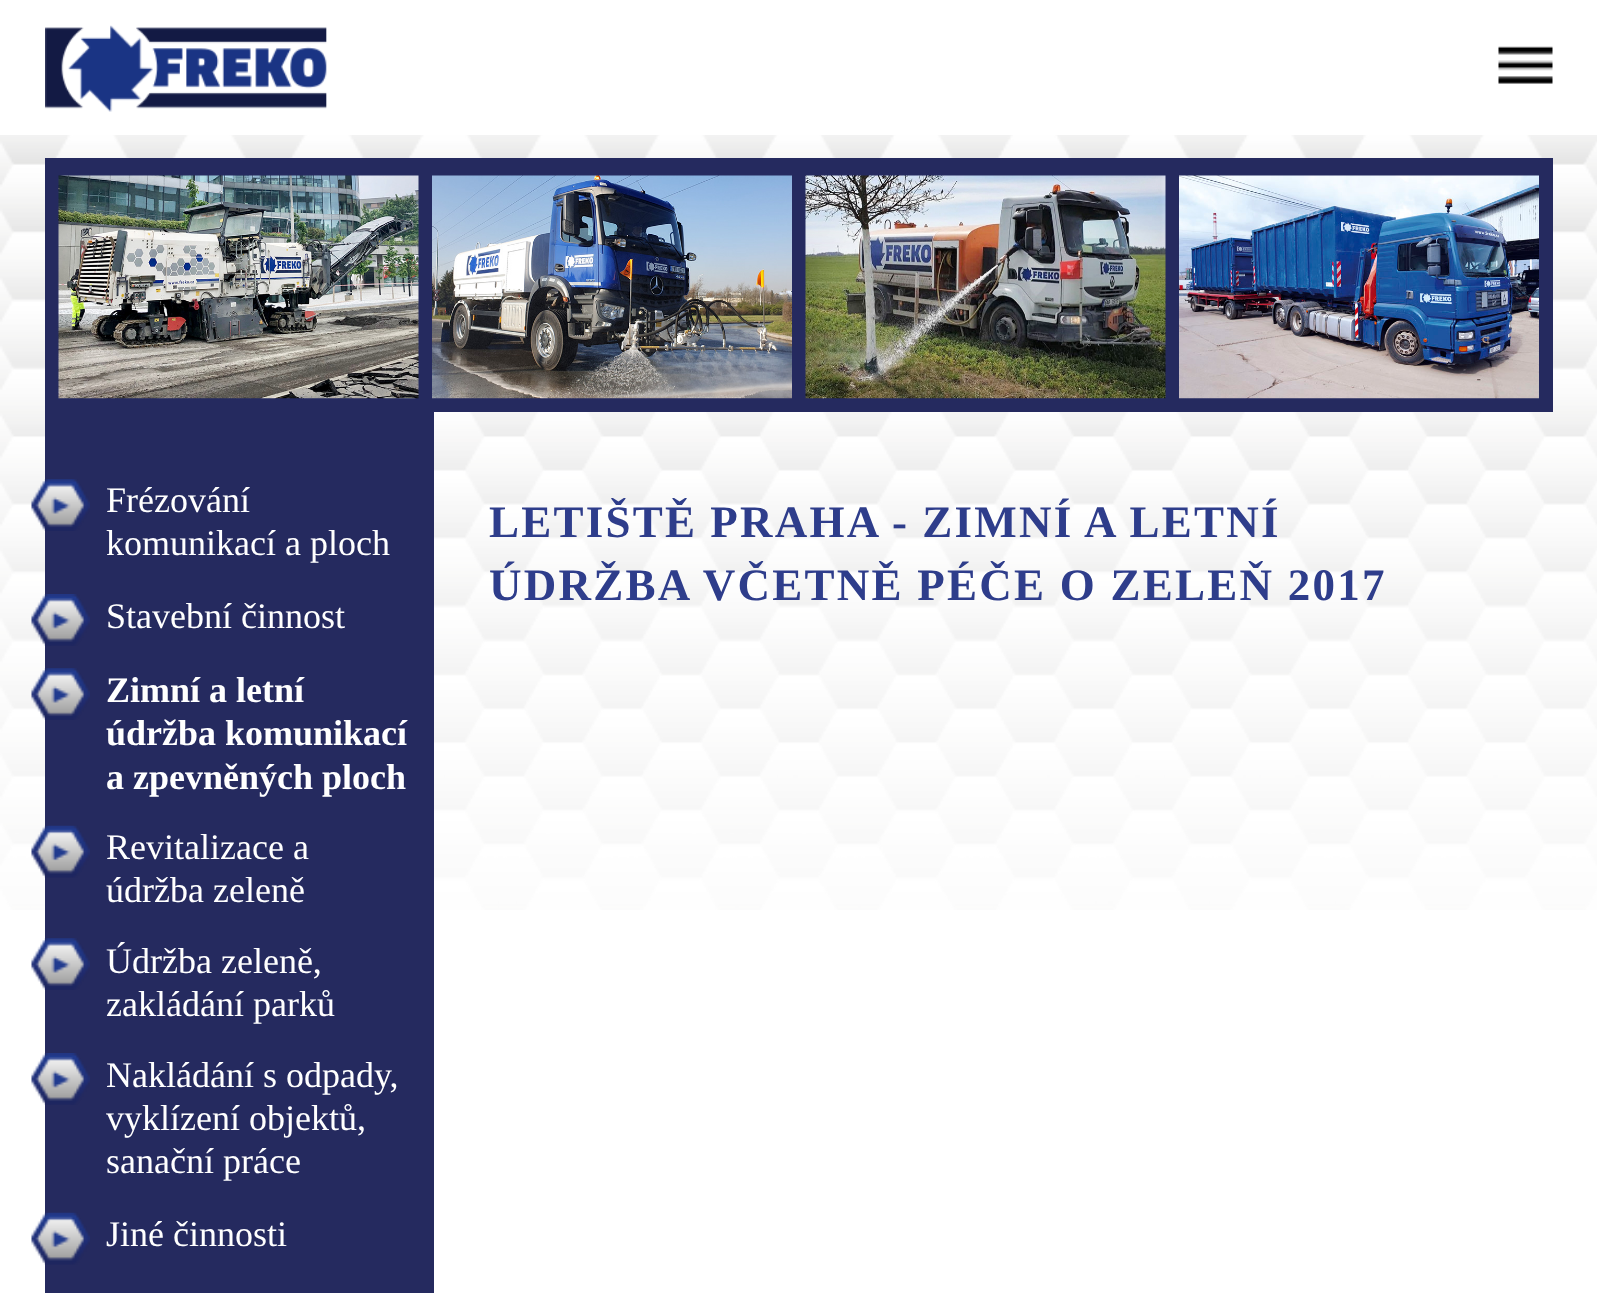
<svg xmlns="http://www.w3.org/2000/svg" width="1597" height="1293">
<style>
.a{font:36px Liberation Serif;fill:#fff}
.b{font:bold 36px Liberation Serif;fill:#fff}
.c{font:bold 45px Liberation Serif;letter-spacing:2.25px;fill:#2e3d8b}
</style>
<rect width="100%" height="100%" fill="#fff"/>
<image href="1.png" x="0" y="135" width="1597" height="775"/>
<image href="2.png" x="45" y="27" width="282" height="82"/>
<image href="3.png" x="68" y="25" width="85" height="87"/>
<image href="4.png" x="1498" y="46" width="55" height="38"/>
<path fill="#252a5f" d="M45 158h1508v254H45z"/>
<image href="5.png" x="58" y="175" width="361" height="224"/>
<image href="6.png" x="432" y="175" width="360" height="224"/>
<image href="7.png" x="805" y="175" width="361" height="224"/>
<image href="8.png" x="1179" y="175" width="360" height="224"/>
<path fill="#252a5f" d="M45 412h389v881H45z"/>
<image href="9.png" x="31" y="479" width="59" height="52"/>
<image href="10.png" x="31" y="594" width="59" height="52"/>
<image href="11.png" x="31" y="668" width="59" height="52"/>
<image href="12.png" x="31" y="825" width="59" height="53"/>
<image href="13.png" x="31" y="938" width="59" height="52"/>
<image href="14.png" x="31" y="1053" width="59" height="52"/>
<image href="15.png" x="31" y="1212" width="59" height="53"/>
<text class="a" x="106" y="512">Frézování</text>
<text class="a" x="106" y="555">komunikací a ploch</text>
<text class="a" x="106" y="628">Stavební činnost</text>
<text class="b" x="106" y="702">Zimní a letní</text>
<text class="b" x="106" y="745">údržba komunikací</text>
<text class="b" x="106" y="789">a zpevněných ploch</text>
<text class="a" x="106" y="859">Revitalizace a</text>
<text class="a" x="106" y="902">údržba zeleně</text>
<text class="a" x="106" y="973">Údržba zeleně,</text>
<text class="a" x="106" y="1016">zakládání parků</text>
<text class="a" x="106" y="1087">Nakládání s odpady,</text>
<text class="a" x="106" y="1130">vyklízení objektů,</text>
<text class="a" x="106" y="1173">sanační práce</text>
<text class="a" x="106" y="1246">Jiné činnosti</text>
<text class="c" x="489" y="537" word-spacing="-0.5">LETIŠTĚ PRAHA - ZIMNÍ A LETNÍ</text>
<text class="c" x="489" y="600">ÚDRŽBA VČETNĚ PÉČE O ZELEŇ 2017</text>
</svg>
